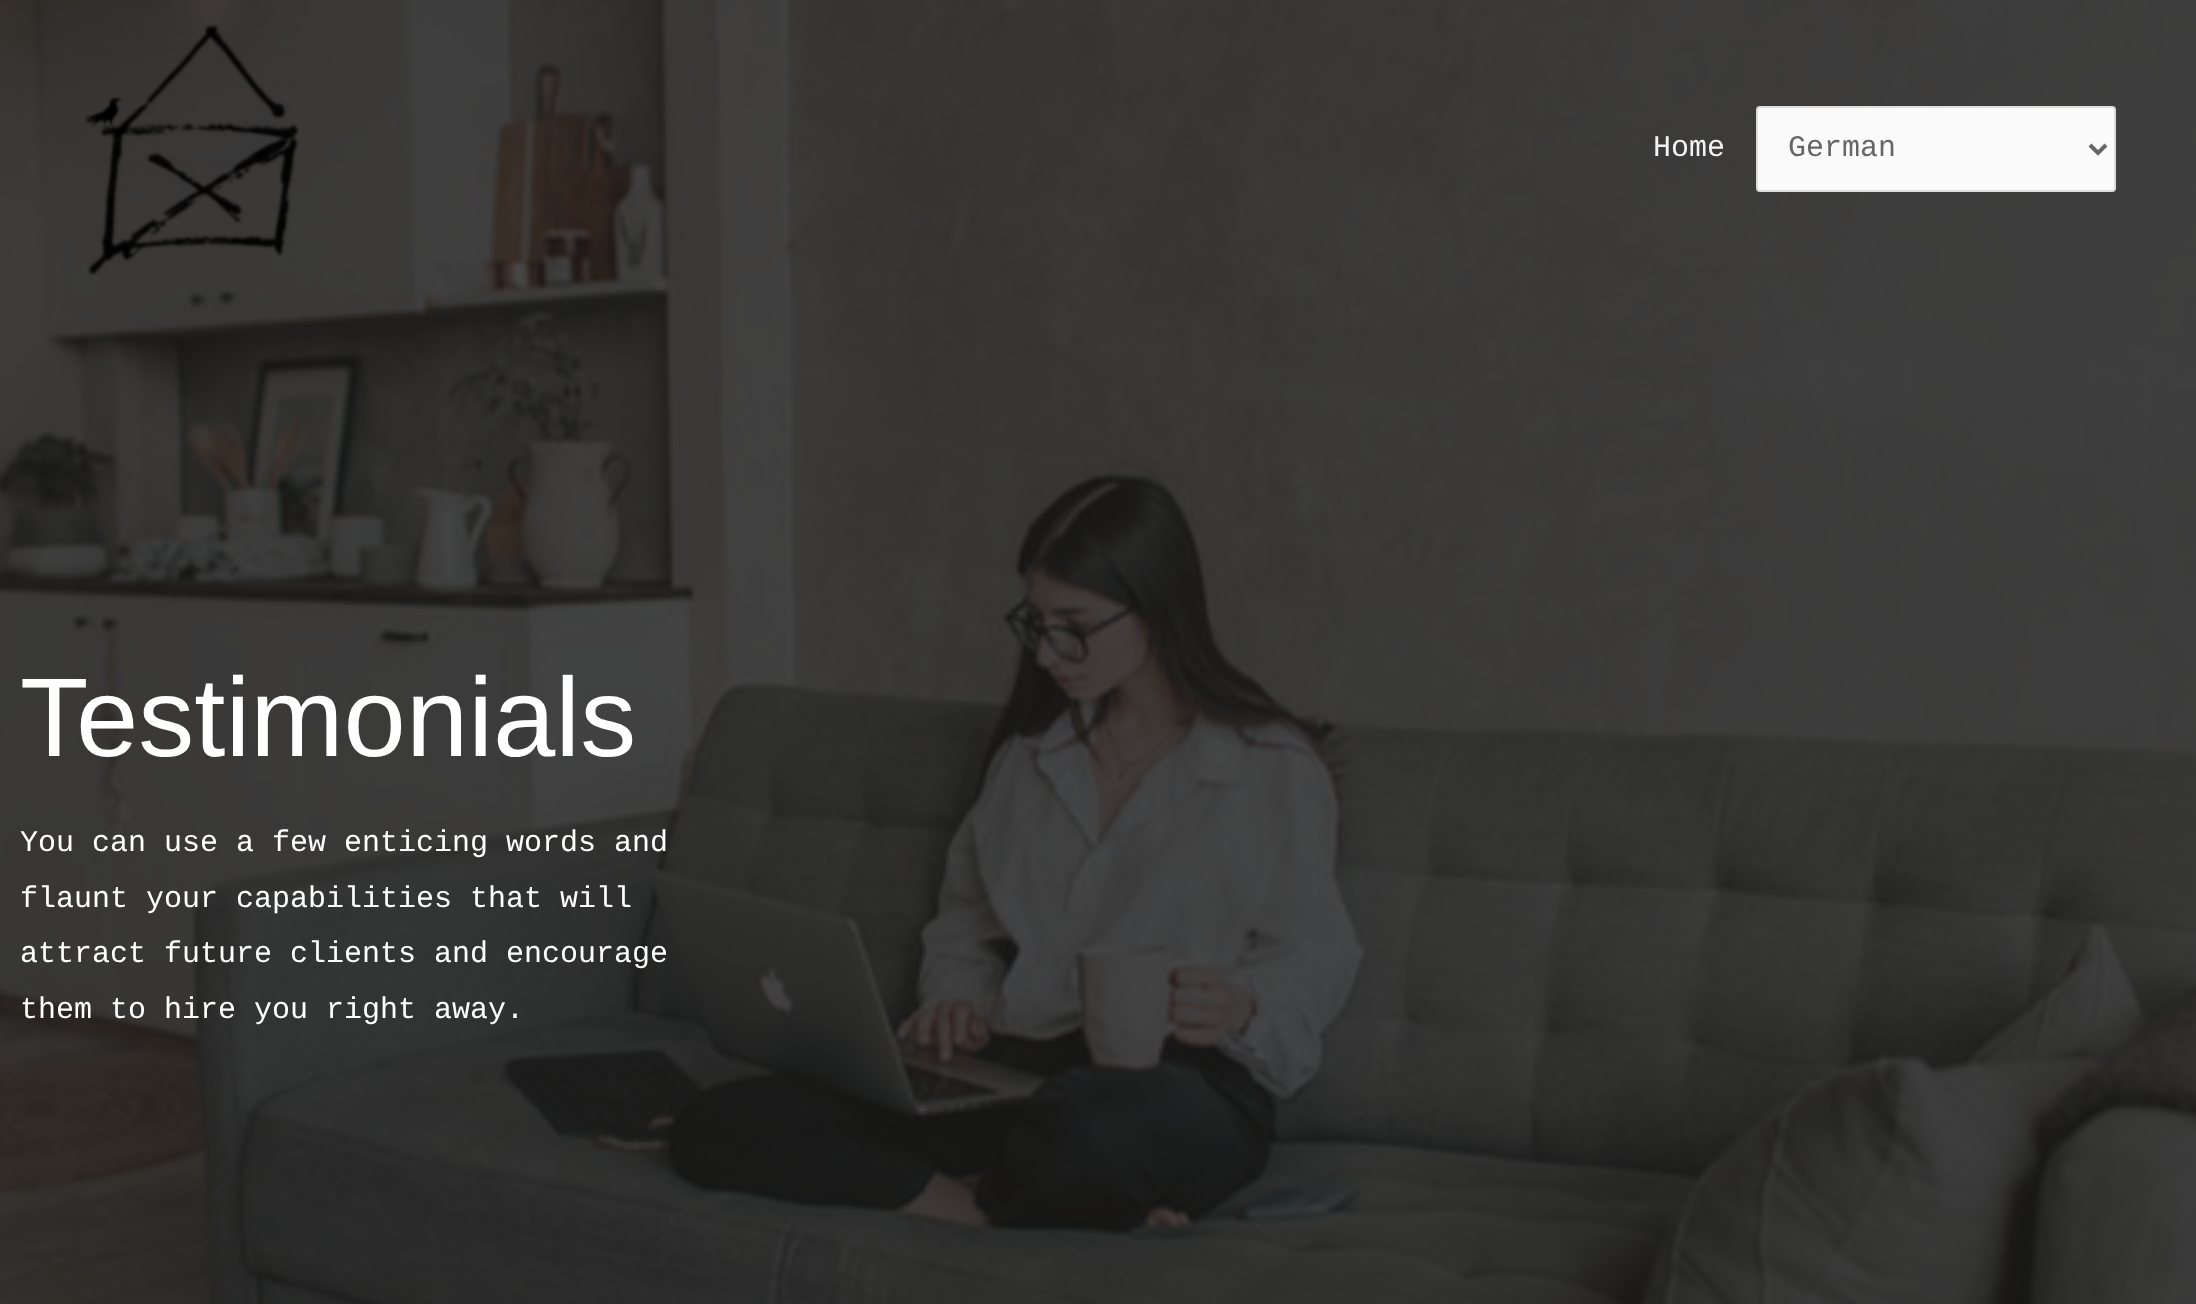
<svg xmlns="http://www.w3.org/2000/svg" width="2196" height="1304">
<style>
.a{font:30px Liberation Mono;fill:#f3f3f3}
.b{font:30px Liberation Mono;fill:#666}
.c{font:112px Liberation Sans;fill:#fff}
.d{font:30px Liberation Mono;fill:#fff}
</style>
<rect width="100%" height="100%" fill="#fff"/>
<image href="2.png" x="0" y="0" width="2196" height="1304"/>
<image href="1.png" x="85" y="24" width="214" height="251"/>
<rect fill="#fafafa" stroke="#ddd" stroke-width="2" x="1757" y="107" width="358" height="84" rx="3"/>
<path fill="none" stroke="#666" stroke-width="4" d="M2090 145l8 8l8-8"/>
<text class="a" x="1653" y="156">Home</text>
<text class="b" x="1788" y="156">German</text>
<text class="c" x="20" y="756">Testimonials</text>
<text class="d" x="20" y="851">You can use a few enticing words and</text>
<text class="d" x="20" y="907">flaunt your capabilities that will</text>
<text class="d" x="20" y="962">attract future clients and encourage</text>
<text class="d" x="20" y="1018">them to hire you right away.</text>
</svg>
